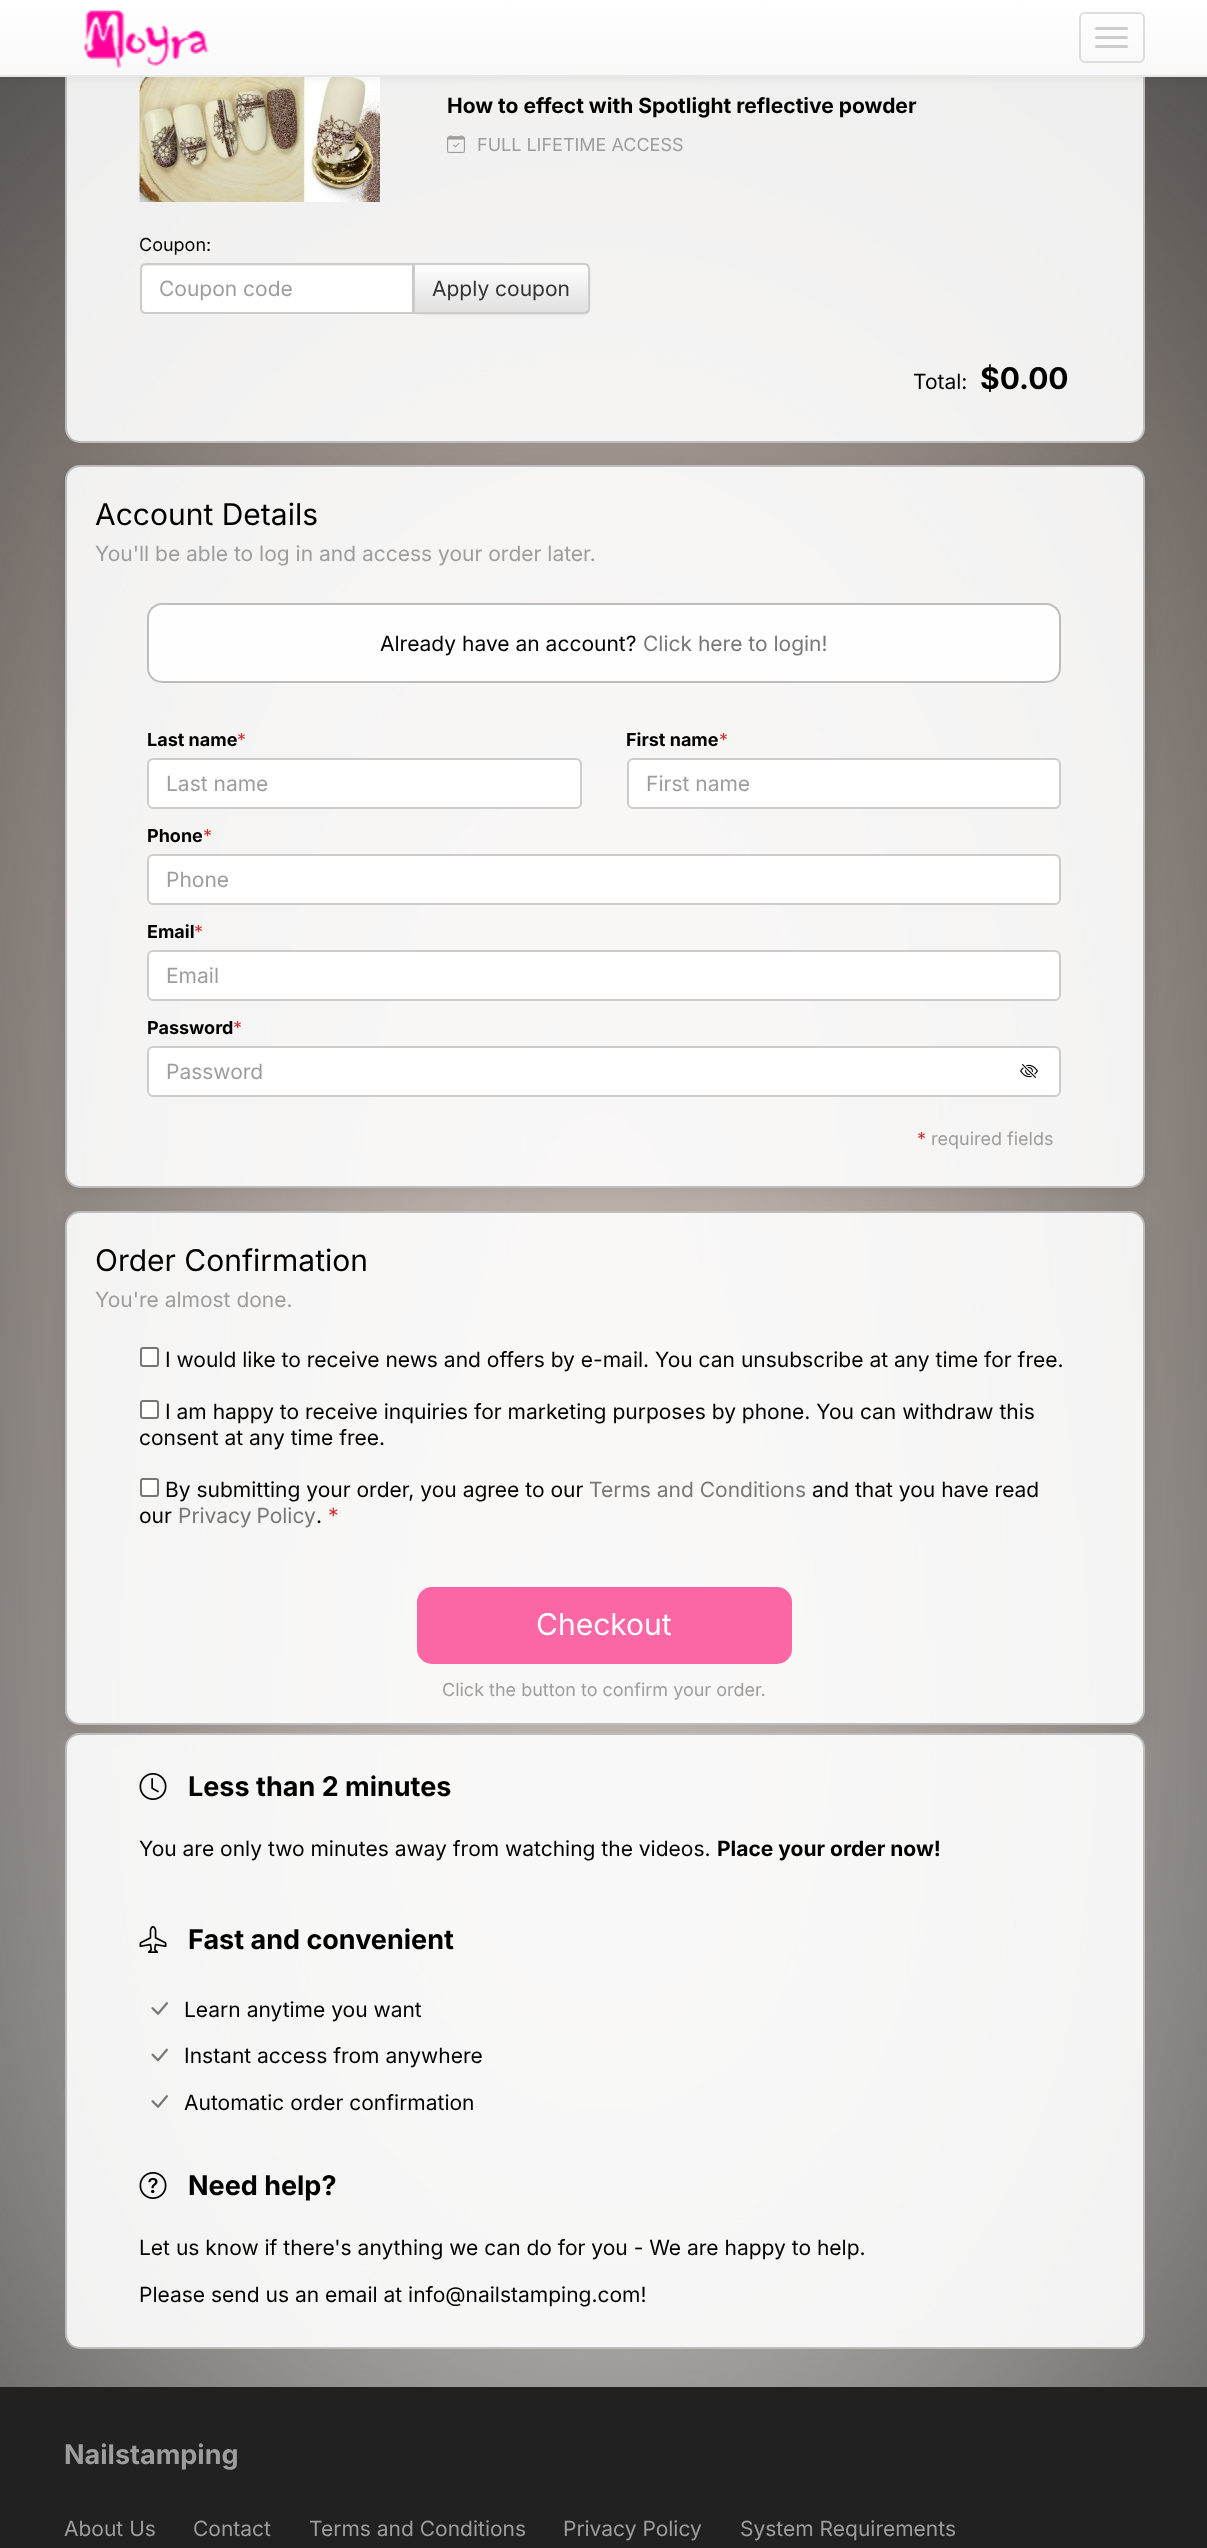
<svg xmlns="http://www.w3.org/2000/svg" width="1207" height="2548">
<style>
.a{font:bold 21px Inter;fill:#000}
.b{font:18px Inter;fill:#9d9d9d}
.c{font:18px Inter;fill:#000}
.d{font:21px Inter;fill:#9d9d9d}
.e{font:21px Inter;fill:#333}
.f{font:21px Inter;fill:#000}
.g{font:bold 30px Inter;fill:#000}
.h{font:30px Inter;fill:#000}
.i{font:21px Inter;fill:#777}
.j{font:bold 18px Inter;fill:#000}
.k{font:18px Inter;fill:#d32f2f}
.l{font:21px Inter;fill:#d32f2f}
.m{font:30px Inter;fill:#fff}
.n{font:bold 27px Inter;fill:#000}
.o{font:bold 27px Inter;fill:#9d9d9d}
</style>
<defs>
<linearGradient id="g1" gradientUnits="userSpaceOnUse" x1="604" y1="0" x2="604" y2="75"><stop offset="0" stop-color="#fff"/><stop offset="1" stop-color="#f8f8f8"/></linearGradient>
<clipPath id="clip1"><path d="M413 263h171c3.5 0 6 2.5 6 6v39c0 3.5-2.5 6-6 6h-171z"/></clipPath>
<linearGradient id="g2" gradientUnits="userSpaceOnUse" x1="501" y1="264" x2="501" y2="312"><stop offset="0" stop-color="#fff"/><stop offset="1" stop-color="#e0e0e0"/></linearGradient>
<clipPath id="clip2"><path d="M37 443h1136v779h-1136zm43 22h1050c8.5 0 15 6.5 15 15v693c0 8.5-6.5 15-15 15h-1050c-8.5 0-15-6.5-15-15v-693c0-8.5 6.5-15 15-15z" clip-rule="evenodd"/></clipPath>
<clipPath id="clip3"><path d="M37 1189h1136v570h-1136zm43 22h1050c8.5 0 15 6.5 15 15v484c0 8.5-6.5 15-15 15h-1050c-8.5 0-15-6.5-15-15v-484c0-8.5 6.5-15 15-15z" clip-rule="evenodd"/></clipPath>
</defs>
<rect width="100%" height="100%" fill="#333"/>
<image href="2.png" x="0" y="77" width="1207" height="2310"/>
<rect fill="#ffffffe6" stroke="#bdbdbd" stroke-width="2" x="66" y="-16" width="1078" height="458" rx="14"/>
<image href="3.png" x="139" y="77" width="241" height="125"/>
<path fill="#00000012" filter="blur(4px)" d="M0 2h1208v76H0z"/>
<path fill="url(#g1)" d="M0 0h1207v75H0z"/>
<path fill="#e7e7e7" d="M0 75h1207v2H0z"/>
<image href="1.png" x="84" y="10" width="125" height="59"/>
<rect fill="none" stroke="#ddd" stroke-width="2" x="1080" y="13" width="64" height="49" rx="5"/>
<rect fill="#ccc" x="1095" y="27" width="33" height="3" rx="1.5"/>
<rect fill="#ccc" x="1095" y="36" width="33" height="3" rx="1.5"/>
<rect fill="#ccc" x="1095" y="45" width="33" height="3" rx="1.5"/>
<image href="4.png" x="447" y="135" width="18" height="18"/>
<path fill="#fff" d="M146 263h268v51h-268c-3.5 0-6-2.5-6-6v-39c0-3.5 2.5-6 6-6z"/>
<path fill="#ececec" d="M146 266h266v46h1v-48h-267c-3 0-5 3-5 6c0-2 2-4 5-4z"/>
<path fill="none" stroke="#ccc" stroke-width="2" d="M146 264h267v49h-267c-3 0-5-2-5-5v-39c0-3 2-5 5-5z"/>
<rect fill="#00000012" filter="blur(1px)" x="413" y="264" width="177" height="51" rx="6"/>
<g clip-path="url(#clip1)">
<path fill="url(#g2)" d="M415 264h175v48H415z"/>
</g>
<path fill="none" stroke="#ccc" stroke-width="2" d="M414 264h170c3 0 5 2 5 5v39c0 3-2 5-5 5h-170z"/>
<g clip-path="url(#clip2)">
<rect fill="#00000014" filter="blur(9px)" x="65" y="471" width="1080" height="723" rx="15"/>
</g>
<rect fill="#ffffffe6" stroke="#bdbdbd" stroke-width="2" x="66" y="466" width="1078" height="721" rx="14"/>
<rect fill="#ffffffe6" stroke="#bdbdbd" stroke-width="2" x="148" y="604" width="912" height="78" rx="14"/>
<rect fill="#fff" x="147" y="758" width="435" height="51" rx="6"/>
<path fill="#ececec" d="M153 760h423c2 0 4 3 4 5v40c1-1 1-2 1-3v-38c0-3-2-5-5-5h-422c-2 0-4 1-5 3c1-1 3-2 4-2z"/>
<rect fill="none" stroke="#ccc" stroke-width="2" x="148" y="759" width="433" height="49" rx="5"/>
<rect fill="#fff" x="627" y="758" width="434" height="51" rx="6"/>
<path fill="#ececec" d="M633 760h421c3 0 5 3 5 5c0-3-2-6-5-6h-421l-2 1l-2 2c1-1 3-2 4-2z"/>
<rect fill="none" stroke="#ccc" stroke-width="2" x="628" y="759" width="432" height="49" rx="5"/>
<rect fill="#fff" x="147" y="854" width="914" height="51" rx="6"/>
<path fill="#ececec" d="M153 856h901c3 0 5 3 5 5v-1c0-3-2-5-5-5h-900c-2 0-4 1-5 3c1-1 3-2 4-2z"/>
<rect fill="none" stroke="#ccc" stroke-width="2" x="148" y="855" width="912" height="49" rx="5"/>
<rect fill="#fff" x="147" y="950" width="914" height="51" rx="6"/>
<path fill="#ececec" d="M153 952h901c3 0 5 3 5 5v-1c0-3-2-5-5-5h-900c-2 0-4 1-5 3c1-1 3-2 4-2z"/>
<rect fill="none" stroke="#ccc" stroke-width="2" x="148" y="951" width="912" height="49" rx="5"/>
<rect fill="#fff" x="147" y="1046" width="914" height="51" rx="6"/>
<path fill="#ececec" d="M153 1048h901c3 0 5 3 5 5v-1c0-3-2-5-5-5h-900c-2 0-4 1-5 3c1-1 3-2 4-2z"/>
<rect fill="none" stroke="#ccc" stroke-width="2" x="148" y="1047" width="912" height="49" rx="5"/>
<image href="5.png" x="1020" y="1064" width="18" height="14"/>
<g clip-path="url(#clip3)">
<rect fill="#00000014" filter="blur(9px)" x="65" y="1217" width="1080" height="514" rx="15"/>
</g>
<rect fill="#ffffffe6" stroke="#bdbdbd" stroke-width="2" x="66" y="1212" width="1078" height="512" rx="14"/>
<rect fill="#fff" stroke="#767676" stroke-width="2" x="141" y="1348" width="17" height="18" rx="2"/>
<rect fill="#fff" stroke="#767676" stroke-width="2" x="141" y="1401" width="17" height="17" rx="2"/>
<rect fill="#fff" stroke="#767676" stroke-width="2" x="141" y="1479" width="17" height="17" rx="2"/>
<rect fill="#fb67a5" x="417" y="1587" width="375" height="77" rx="15"/>
<rect fill="#ffffffe6" stroke="#bdbdbd" stroke-width="2" x="66" y="1734" width="1078" height="614" rx="14"/>
<image href="6.png" x="139" y="1773" width="28" height="27"/>
<image href="7.png" x="139" y="1926" width="28" height="27"/>
<image href="8.png" x="151" y="2002" width="17" height="13"/>
<image href="9.png" x="151" y="2048" width="17" height="14"/>
<image href="10.png" x="151" y="2095" width="17" height="13"/>
<image href="11.png" x="139" y="2172" width="28" height="27"/>
<path fill="#212121" d="M0 2387h1207v161H0z"/>
<text class="a" x="447" y="113">How to effect with Spotlight reflective powder</text>
<text class="b" x="477" y="151">FULL LIFETIME ACCESS</text>
<text class="c" x="139" y="251">Coupon:</text>
<text class="d" x="159" y="296">Coupon code</text>
<text class="e" x="432" y="296">Apply coupon</text>
<text class="f" x="913" y="389">Total:</text>
<text class="g" x="980" y="389">$0.00</text>
<text class="h" x="95" y="525">Account Details</text>
<text class="d" x="95" y="561">You'll be able to log in and access your order later.</text>
<text class="f" x="380" y="651">Already have an account?</text>
<text class="i" x="643" y="651">Click here to login!</text>
<text class="j" x="147" y="746">Last name</text>
<text class="k" x="237" y="746">*</text>
<text class="d" x="166" y="791">Last name</text>
<text class="j" x="626" y="746">First name</text>
<text class="k" x="719" y="746">*</text>
<text class="d" x="646" y="791">First name</text>
<text class="j" x="147" y="842">Phone</text>
<text class="k" x="203" y="842">*</text>
<text class="d" x="166" y="887">Phone</text>
<text class="j" x="147" y="938">Email</text>
<text class="k" x="194" y="938">*</text>
<text class="d" x="166" y="983">Email</text>
<text class="j" x="147" y="1034">Password</text>
<text class="k" x="233" y="1034">*</text>
<text class="d" x="166" y="1079">Password</text>
<text class="k" x="917" y="1145">*</text>
<text class="b" x="931" y="1145">required fields</text>
<text class="h" x="95" y="1271">Order Confirmation</text>
<text class="d" x="95" y="1307">You're almost done.</text>
<text class="f" x="165" y="1367">I would like to receive news and offers by e-mail. You can unsubscribe at any time for free.</text>
<text class="f" x="165" y="1419">I am happy to receive inquiries for marketing purposes by phone. You can withdraw this</text>
<text class="f" x="139" y="1445">consent at any time free.</text>
<text class="f" x="165" y="1497">By submitting your order, you agree to our</text>
<text class="i" x="589" y="1497">Terms and Conditions</text>
<text class="f" x="812" y="1497">and that you have read</text>
<text class="f" x="139" y="1523">our</text>
<text class="i" x="178" y="1523" word-spacing="-1">Privacy Policy</text>
<text class="f" x="316" y="1523">.</text>
<text class="l" x="328" y="1523">*</text>
<text class="m" x="536" y="1635">Checkout</text>
<text class="b" x="442" y="1696">Click the button to confirm your order.</text>
<text class="n" x="188" y="1796">Less than 2 minutes</text>
<text class="f" x="139" y="1856">You are only two minutes away from watching the videos.</text>
<text class="a" x="717" y="1856">Place your order now!</text>
<text class="n" x="188" y="1949">Fast and convenient</text>
<text class="f" x="184" y="2017">Learn anytime you want</text>
<text class="f" x="184" y="2063">Instant access from anywhere</text>
<text class="f" x="184" y="2110">Automatic order confirmation</text>
<text class="n" x="188" y="2195">Need help?</text>
<text class="f" x="139" y="2255">Let us know if there's anything we can do for you - We are happy to help.</text>
<text class="f" x="139" y="2302">Please send us an email at info@nailstamping.com!</text>
<text class="o" x="64" y="2464">Nailstamping</text>
<text class="d" x="64" y="2536">About Us</text>
<text class="d" x="193" y="2536">Contact</text>
<text class="d" x="309" y="2536">Terms and Conditions</text>
<text class="d" x="563" y="2536">Privacy Policy</text>
<text class="d" x="740" y="2536">System Requirements</text>
</svg>
